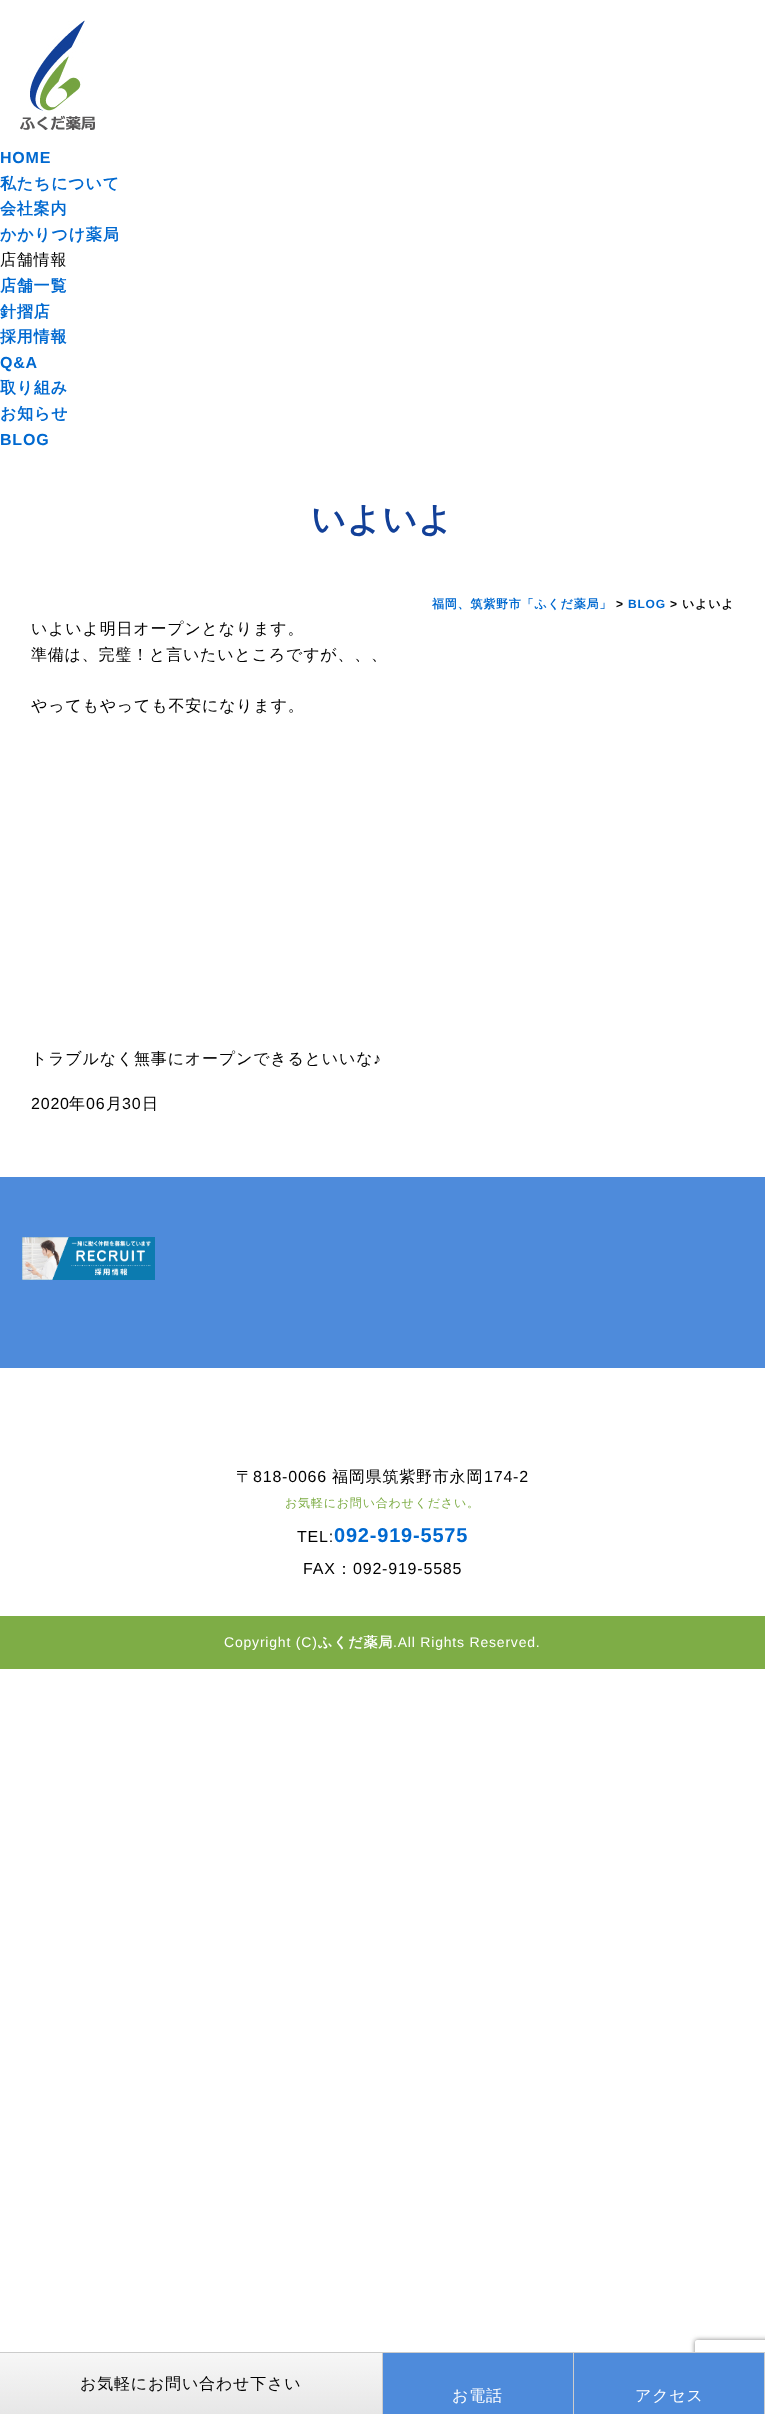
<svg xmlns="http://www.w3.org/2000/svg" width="765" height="2414">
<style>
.a{font:bold 16px Liberation Sans;letter-spacing:0.8px;fill:#0069d0}
.b{font:bold 16px WenQuanYi Zen Hei;letter-spacing:0.8px;fill:#0069d0}
.c{font:500 16px WenQuanYi Zen Hei;letter-spacing:0.8px;fill:#000}
.d{font:bold 34px WenQuanYi Zen Hei;letter-spacing:0.8px;fill:#124098}
.e{font:bold 12px WenQuanYi Zen Hei;letter-spacing:0.8px;fill:#0069d0}
.f{font:bold 12px Liberation Sans;letter-spacing:0.8px;fill:#000}
.g{font:bold 12px Liberation Sans;letter-spacing:0.8px;fill:#0069d0}
.h{font:bold 12px WenQuanYi Zen Hei;letter-spacing:0.8px;fill:#000}
.i{font:16px Liberation Sans;letter-spacing:0.8px;fill:#000}
.j{font:500 12px WenQuanYi Zen Hei;letter-spacing:0.8px;fill:#7ead46}
.k{font:bold 20px Liberation Sans;letter-spacing:0.8px;fill:#0069d0}
.l{font:14px Liberation Sans;letter-spacing:0.8px;fill:#fff}
.m{font:bold 14px WenQuanYi Zen Hei;letter-spacing:0.8px;fill:#fff}
.n{font:500 16px WenQuanYi Zen Hei;letter-spacing:0.8px;fill:#fff}
</style>
<defs>
<clipPath id="clip1"><path d="M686 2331h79v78h-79zm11 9h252c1 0 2 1 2 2v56c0 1-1 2-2 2h-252c-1 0-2-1-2-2v-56c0-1 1-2 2-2z" clip-rule="evenodd"/></clipPath>
<linearGradient id="g1" gradientUnits="userSpaceOnUse" x1="191" y1="2353" x2="191" y2="2414"><stop offset="0" stop-color="#f7f7f7"/><stop offset="1" stop-color="#e7e7e7"/></linearGradient>
</defs>
<rect width="100%" height="100%" fill="#fff"/>
<image href="1.png" x="20" y="20" width="75" height="110"/>
<path fill="#4e8bdb" d="M0 1177h765v191H0z"/>
<image href="2.png" x="22" y="1237" width="133" height="43"/>
<path fill="#7ead46" d="M0 1616h765v53H0z"/>
<g clip-path="url(#clip1)">
<rect fill="#808080" filter="blur(2.5px)" x="695" y="2340" width="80" height="60" rx="2"/>
</g>
<path fill="#ccc" d="M0 2352h765v1H0z"/>
<path fill="url(#g1)" d="M0 2353h382v61H0z"/>
<path fill="#ccc" d="M382 2353h1v61H382z"/>
<path fill="#4e8bdb" d="M383 2353h190v61H383z"/>
<path fill="#ccc" d="M573 2353h1v61H573z"/>
<path fill="#4e8bdb" d="M574 2353h190v61H574z"/>
<path fill="#ccc" d="M764 2353h1v61H764z"/>
<text class="a" x="0" y="163">HOME</text>
<text class="b" x="0" y="189">私たちについて</text>
<text class="b" x="0" y="214">会社案内</text>
<text class="b" x="0" y="240">かかりつけ薬局</text>
<text class="c" x="0" y="265">店舗情報</text>
<text class="b" x="0" y="291">店舗一覧</text>
<text class="b" x="0" y="317">針摺店</text>
<text class="b" x="0" y="342">採用情報</text>
<text class="a" x="0" y="368">Q&amp;A</text>
<text class="b" x="0" y="393">取り組み</text>
<text class="b" x="0" y="419">お知らせ</text>
<text class="a" x="0" y="445">BLOG</text>
<text class="d" x="311" y="531">いよいよ</text>
<text class="e" x="432" y="608">福岡、筑紫野市「ふくだ薬局」</text>
<text class="f" x="616" y="608">&gt;</text>
<text class="g" x="628" y="608">BLOG</text>
<text class="f" x="670" y="608">&gt;</text>
<text class="h" x="682" y="608">いよいよ</text>
<text class="c" x="31" y="634">いよいよ明日オープンとなります。</text>
<text class="c" x="31" y="660">準備は、完璧！と言いたいところですが、、、</text>
<text class="c" x="31" y="711">やってもやっても不安になります。</text>
<text class="c" x="31" y="1064">トラブルなく無事にオープンできるといいな</text>
<text class="i" x="373" y="1064">♪</text>
<text class="i" x="31" y="1109">2020</text>
<text class="c" x="69" y="1109">年</text>
<text class="i" x="86" y="1109">06</text>
<text class="c" x="106" y="1109">月</text>
<text class="i" x="122" y="1109">30</text>
<text class="c" x="142" y="1109">日</text>
<text class="c" x="236" y="1482">〒</text>
<text class="i" x="253" y="1482">818-0066</text>
<text class="c" x="332" y="1482">福岡県筑紫野市永岡</text>
<text class="i" x="484" y="1482">174-2</text>
<text class="j" x="285" y="1507">お気軽にお問い合わせください。</text>
<text class="i" x="297" y="1542">TEL:</text>
<text class="k" x="334" y="1542">092-919-5575</text>
<text class="i" x="303" y="1574">FAX</text>
<text class="c" x="336" y="1574">：</text>
<text class="i" x="353" y="1574">092-919-5585</text>
<text class="l" x="224" y="1647">Copyright (C)</text>
<text class="m" x="318" y="1647">ふくだ薬局</text>
<text class="l" x="393" y="1647">.All Rights Reserved.</text>
<text class="c" x="80" y="2389">お気軽にお問い合わせ下さい</text>
<text class="n" x="452" y="2401">お電話</text>
<text class="n" x="635" y="2401">アクセス</text>
</svg>
